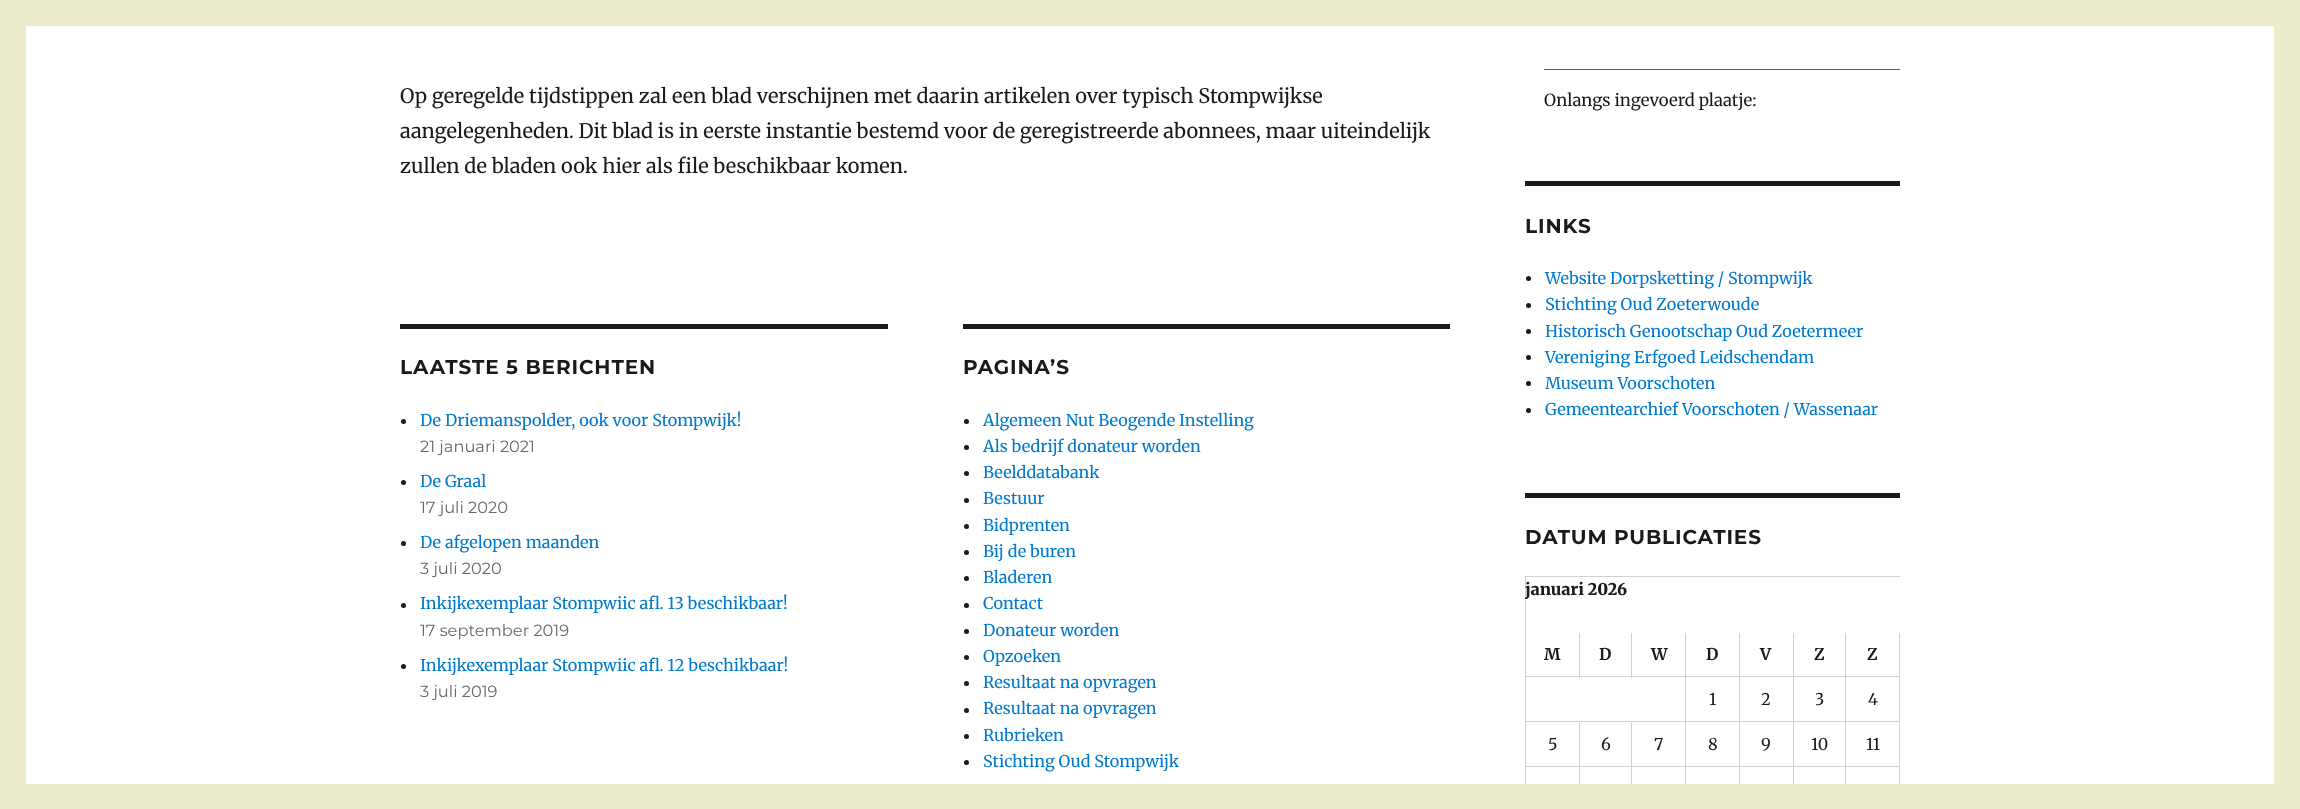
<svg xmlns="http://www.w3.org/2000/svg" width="2300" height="809">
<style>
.a{font:20px Merriweather;fill:#1a1a1a}
.b{font:bold 20px Montserrat;letter-spacing:0.9px;fill:#1a1a1a}
.c{font:16.25px Merriweather;fill:#007acc}
.d{font:16.25px Montserrat;fill:#686868}
.e{font:16.7px Merriweather;fill:#1a1a1a}
.f{font:900 16.25px Merriweather;fill:#1a1a1a}
.g{font:bold 16.25px Merriweather;fill:#1a1a1a}
.h{font:16.25px Merriweather;fill:#1a1a1a}
</style>
<rect width="100%" height="100%" fill="#ededce"/>
<path fill="#fff" d="M26 26h2248v758H26z"/>
<path fill="#1a1a1a" d="M400 324h488v5H400z"/>
<circle fill="#1a1a1a" cx="403.5" cy="421.5" r="2.5"/>
<circle fill="#1a1a1a" cx="403.5" cy="482.5" r="2.5"/>
<circle fill="#1a1a1a" cx="403.5" cy="543.5" r="2.5"/>
<circle fill="#1a1a1a" cx="403.5" cy="605.5" r="2.5"/>
<circle fill="#1a1a1a" cx="403.5" cy="666.5" r="2.5"/>
<path fill="#1a1a1a" d="M963 324h487v5H963z"/>
<circle fill="#1a1a1a" cx="966.5" cy="421.5" r="2.5"/>
<circle fill="#1a1a1a" cx="966.5" cy="447.5" r="2.5"/>
<circle fill="#1a1a1a" cx="966.5" cy="473.5" r="2.5"/>
<circle fill="#1a1a1a" cx="966.5" cy="500.5" r="2.5"/>
<circle fill="#1a1a1a" cx="966.5" cy="526.5" r="2.5"/>
<circle fill="#1a1a1a" cx="966.5" cy="552.5" r="2.5"/>
<circle fill="#1a1a1a" cx="966.5" cy="578.5" r="2.5"/>
<circle fill="#1a1a1a" cx="966.5" cy="605.5" r="2.5"/>
<circle fill="#1a1a1a" cx="966.5" cy="631.5" r="2.5"/>
<circle fill="#1a1a1a" cx="966.5" cy="657.5" r="2.5"/>
<circle fill="#1a1a1a" cx="966.5" cy="683.5" r="2.5"/>
<circle fill="#1a1a1a" cx="966.5" cy="710.5" r="2.5"/>
<circle fill="#1a1a1a" cx="966.5" cy="736.5" r="2.5"/>
<circle fill="#1a1a1a" cx="966.5" cy="762.5" r="2.5"/>
<path fill="#007acc" d="M1544 69h356v1H1544z"/>
<path fill="#1a1a1a" d="M1525 181h375v5H1525z"/>
<circle fill="#1a1a1a" cx="1528.5" cy="278.5" r="2.5"/>
<circle fill="#1a1a1a" cx="1528.5" cy="305.5" r="2.5"/>
<circle fill="#1a1a1a" cx="1528.5" cy="331.5" r="2.5"/>
<circle fill="#1a1a1a" cx="1528.5" cy="357.5" r="2.5"/>
<circle fill="#1a1a1a" cx="1528.5" cy="383.5" r="2.5"/>
<circle fill="#1a1a1a" cx="1528.5" cy="410.5" r="2.5"/>
<path fill="#1a1a1a" d="M1525 493h375v5H1525z"/>
<path fill="#d1d1d1" d="M1525 576h375v1H1525z"/>
<path fill="#d1d1d1" d="M1525 576h1v208H1525z"/>
<path fill="#d1d1d1" d="M1579 633h1v45H1579z"/>
<path fill="#d1d1d1" d="M1526 676h54v1H1526z"/>
<path fill="#d1d1d1" d="M1631 633h1v45H1631z"/>
<path fill="#d1d1d1" d="M1580 676h53v1H1580z"/>
<path fill="#d1d1d1" d="M1685 633h1v151H1685z"/>
<path fill="#d1d1d1" d="M1633 676h53v1H1633z"/>
<path fill="#d1d1d1" d="M1739 633h1v151H1739z"/>
<path fill="#d1d1d1" d="M1686 676h54v1H1686z"/>
<path fill="#d1d1d1" d="M1793 633h1v151H1793z"/>
<path fill="#d1d1d1" d="M1740 676h54v1H1740z"/>
<path fill="#d1d1d1" d="M1845 633h1v151H1845z"/>
<path fill="#d1d1d1" d="M1794 676h52v1H1794z"/>
<path fill="#d1d1d1" d="M1899 633h1v151H1899z"/>
<path fill="#d1d1d1" d="M1846 676h54v1H1846z"/>
<path fill="#d1d1d1" d="M1526 721h374v1H1526z"/>
<path fill="#d1d1d1" d="M1579 723h1v61H1579z"/>
<path fill="#d1d1d1" d="M1526 766h54v1H1526z"/>
<path fill="#d1d1d1" d="M1631 723h1v61H1631z"/>
<path fill="#d1d1d1" d="M1580 766h320v1H1580z"/>
<text class="a" x="400" y="103">Op geregelde tijdstippen zal een blad verschijnen met daarin artikelen over typisch Stompwijkse</text>
<text class="a" x="400" y="138">aangelegenheden. Dit blad is in eerste instantie bestemd voor de geregistreerde abonnees, maar uiteindelijk</text>
<text class="a" x="400" y="173">zullen de bladen ook hier als file beschikbaar komen.</text>
<text class="b" x="400" y="374">LAATSTE 5 BERICHTEN</text>
<text class="c" x="420" y="426">De Driemanspolder, ook voor Stompwijk!</text>
<text class="d" x="420" y="452">21 januari 2021</text>
<text class="c" x="420" y="487">De Graal</text>
<text class="d" x="420" y="513">17 juli 2020</text>
<text class="c" x="420" y="548">De afgelopen maanden</text>
<text class="d" x="420" y="574">3 juli 2020</text>
<text class="c" x="420" y="609">Inkijkexemplaar Stompwiic afl. 13 beschikbaar!</text>
<text class="d" x="420" y="636">17 september 2019</text>
<text class="c" x="420" y="671">Inkijkexemplaar Stompwiic afl. 12 beschikbaar!</text>
<text class="d" x="420" y="697">3 juli 2019</text>
<text class="b" x="963" y="374">PAGINA’S</text>
<text class="c" x="983" y="426">Algemeen Nut Beogende Instelling</text>
<text class="c" x="983" y="452">Als bedrijf donateur worden</text>
<text class="c" x="983" y="478">Beelddatabank</text>
<text class="c" x="983" y="504">Bestuur</text>
<text class="c" x="983" y="531">Bidprenten</text>
<text class="c" x="983" y="557">Bij de buren</text>
<text class="c" x="983" y="583">Bladeren</text>
<text class="c" x="983" y="609">Contact</text>
<text class="c" x="983" y="636">Donateur worden</text>
<text class="c" x="983" y="662">Opzoeken</text>
<text class="c" x="983" y="688">Resultaat na opvragen</text>
<text class="c" x="983" y="714">Resultaat na opvragen</text>
<text class="c" x="983" y="741">Rubrieken</text>
<text class="c" x="983" y="767">Stichting Oud Stompwijk</text>
<text class="e" x="1544" y="106">Onlangs ingevoerd plaatje:</text>
<text class="b" x="1525" y="233">LINKS</text>
<text class="c" x="1545" y="284">Website Dorpsketting / Stompwijk</text>
<text class="c" x="1545" y="310">Stichting Oud Zoeterwoude</text>
<text class="c" x="1545" y="337">Historisch Genootschap Oud Zoetermeer</text>
<text class="c" x="1545" y="363">Vereniging Erfgoed Leidschendam</text>
<text class="c" x="1545" y="389">Museum Voorschoten</text>
<text class="c" x="1545" y="415">Gemeentearchief Voorschoten / Wassenaar</text>
<text class="b" x="1525" y="544">DATUM PUBLICATIES</text>
<text class="f" x="1525" y="595">januari 2026</text>
<text class="g" x="1544" y="660">M</text>
<text class="g" x="1599" y="660">D</text>
<text class="g" x="1651" y="660">W</text>
<text class="g" x="1706" y="660">D</text>
<text class="g" x="1760" y="660">V</text>
<text class="g" x="1814" y="660">Z</text>
<text class="g" x="1867" y="660">Z</text>
<text class="h" x="1709" y="705">1</text>
<text class="h" x="1761" y="705">2</text>
<text class="h" x="1815" y="705">3</text>
<text class="h" x="1868" y="705">4</text>
<text class="h" x="1548" y="750">5</text>
<text class="h" x="1601" y="750">6</text>
<text class="h" x="1654" y="750">7</text>
<text class="h" x="1708" y="750">8</text>
<text class="h" x="1761" y="750">9</text>
<text class="h" x="1811" y="750">10</text>
<text class="h" x="1866" y="750">11</text>
</svg>
